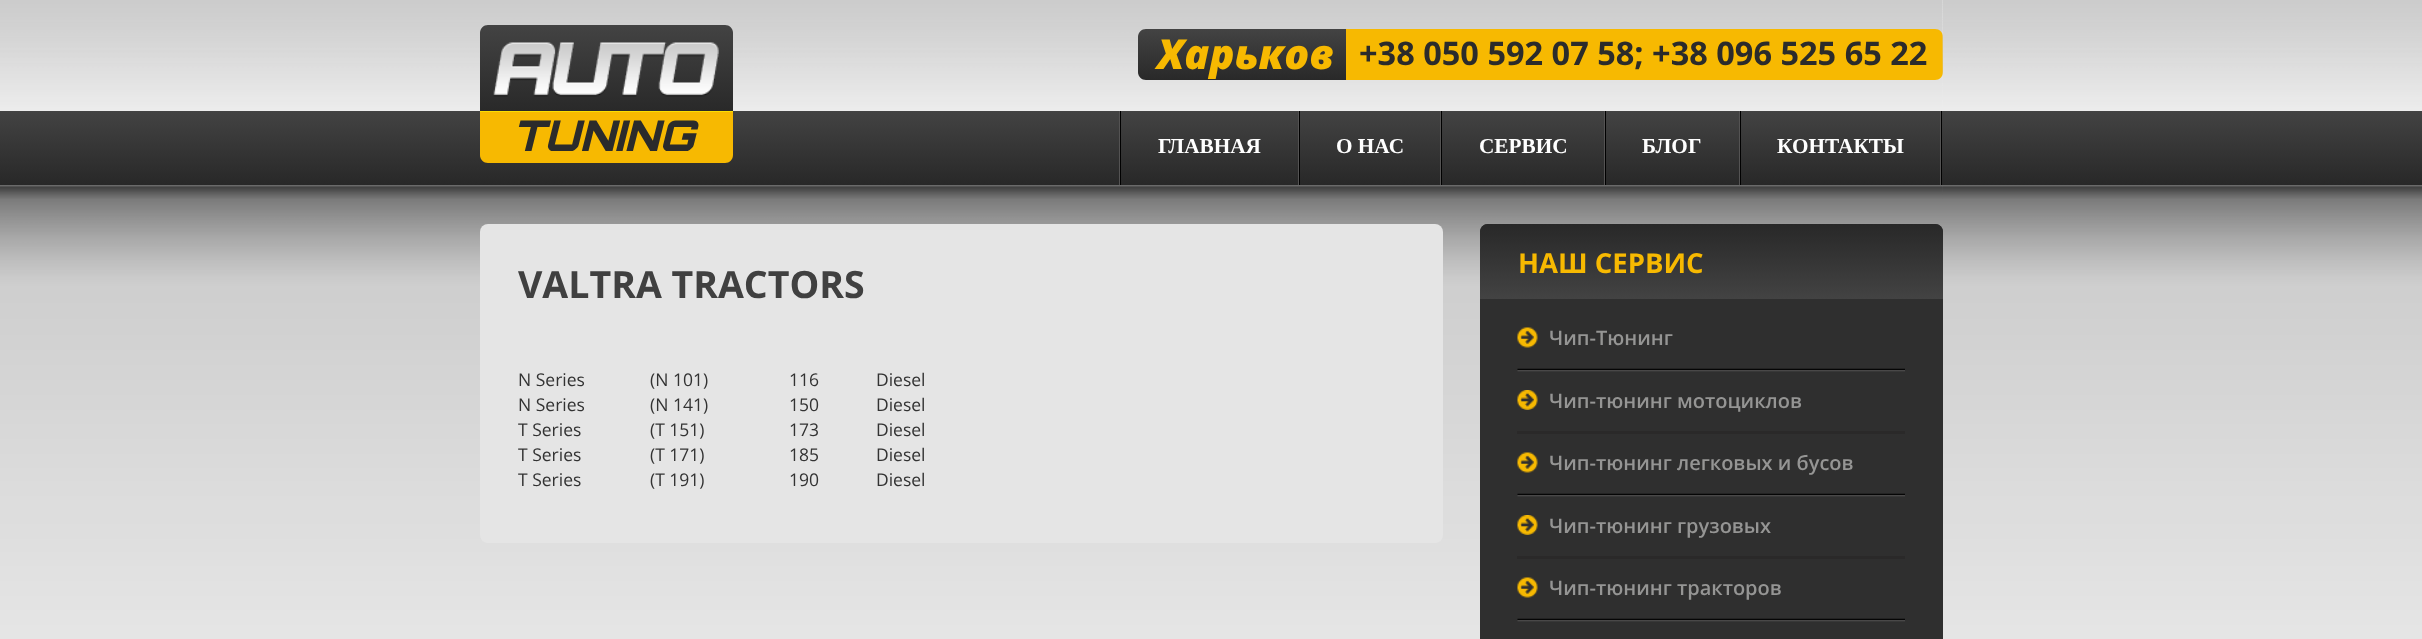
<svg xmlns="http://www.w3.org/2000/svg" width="2422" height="639">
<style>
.a{font:italic 800 41.25px Open Sans;fill:#f7b901}
.b{font:bold 32.5px Open Sans;fill:#2b2b2b}
.c{font:italic 900 42.5px Orbitron;fill:#2b2b2b}
.d{font:bold 21.25px Liberation Serif;fill:#fff}
.e{font:bold 37.5px Open Sans;fill:#404040}
.f{font:17.5px Open Sans;fill:#333}
.g{font:bold 27.5px Open Sans;fill:#f7b901}
.h{font:600 20px Open Sans;fill:#959594}
</style>
<defs>
<linearGradient id="g1" gradientUnits="userSpaceOnUse" x1="1242" y1="29" x2="1242" y2="80"><stop offset="0" stop-color="#434343"/><stop offset="1" stop-color="#292929"/></linearGradient>
<linearGradient id="g2" gradientUnits="userSpaceOnUse" x1="606" y1="25" x2="606" y2="111"><stop offset="0" stop-color="#434343"/><stop offset="1" stop-color="#292929"/></linearGradient>
<linearGradient id="g3" gradientUnits="userSpaceOnUse" x1="1211" y1="111" x2="1211" y2="185"><stop offset="0" stop-color="#434343"/><stop offset="1" stop-color="#282828"/></linearGradient>
<linearGradient id="g4" gradientUnits="userSpaceOnUse" x1="-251" y1="111" x2="-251" y2="185"><stop offset="0" stop-color="#434343"/><stop offset="1" stop-color="#282828"/></linearGradient>
<linearGradient id="g5" gradientUnits="userSpaceOnUse" x1="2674" y1="111" x2="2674" y2="185"><stop offset="0" stop-color="#434343"/><stop offset="1" stop-color="#282828"/></linearGradient>
<linearGradient id="g6" gradientUnits="userSpaceOnUse" x1="1711" y1="224" x2="1711" y2="299"><stop offset="0" stop-color="#282828"/><stop offset="1" stop-color="#434343"/></linearGradient>
</defs>
<rect width="100%" height="100%" fill="#f6f6f6"/>
<image href="1.png" x="480" y="0" width="1463" height="111"/>
<image href="2.png" x="0" y="0" width="480" height="111"/>
<path fill="url(#g1)" d="M1146 29h200v51h-200c-4.5 0-8-3.5-8-8v-35c0-4.5 3.5-8 8-8z"/>
<path fill="#f7b901" d="M1346 29h589c4.5 0 8 3.5 8 8v35c0 4.5-3.5 8-8 8h-589z"/>
<path fill="url(#g2)" d="M488 25h237c4.5 0 8 3.5 8 8v78h-253v-78c0-4.5 3.5-8 8-8z"/>
<image href="3.png" x="493" y="42" width="226" height="55"/>
<path fill="url(#g3)" d="M480 111h1463v74H480z"/>
<path fill="#f7b901" d="M480 111h253v44c0 4.5-3.5 8-8 8h-237c-4.5 0-8-3.5-8-8z"/>
<path fill="#fbde02" d="M480 111h253v1H480z"/>
<image href="4.png" x="1942" y="0" width="480" height="111"/>
<path fill="#6a6a6a" d="M0 185h2422v1H0z"/>
<path fill="url(#g4)" d="M0 111h480v74H0z"/>
<path fill="#000" d="M1941 111h1v74H1941z"/>
<path fill="#545353" d="M1119 111h1v74H1119z"/>
<path fill="#545353" d="M1298 111h1v74H1298z"/>
<path fill="#000" d="M1120 111h1v74H1120z"/>
<path fill="#545353" d="M1440 111h1v74H1440z"/>
<path fill="#000" d="M1299 111h1v74H1299z"/>
<path fill="#545353" d="M1604 111h1v74H1604z"/>
<path fill="#000" d="M1441 111h1v74H1441z"/>
<path fill="#545353" d="M1739 111h1v74H1739z"/>
<path fill="#000" d="M1605 111h1v74H1605z"/>
<path fill="#545353" d="M1940 111h1v74H1940z"/>
<path fill="#000" d="M1740 111h1v74H1740z"/>
<path fill="url(#g5)" d="M1943 111h479v74H1943z"/>
<image href="8.png" x="0" y="186" width="2422" height="453"/>
<image href="5.png" x="480" y="186" width="1463" height="13"/>
<image href="6.png" x="0" y="186" width="480" height="13"/>
<image href="7.png" x="1942" y="186" width="480" height="13"/>
<rect fill="#e5e5e5" x="480" y="224" width="963" height="319" rx="8"/>
<rect fill="#2f2f2f" x="1480" y="224" width="463" height="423" rx="8"/>
<path fill="url(#g6)" d="M1488 224h447c4.5 0 8 3.5 8 8v67h-463v-67c0-4.5 3.5-8 8-8z"/>
<image href="9.png" x="1517" y="327" width="21" height="21"/>
<image href="10.png" x="1517" y="390" width="21" height="20"/>
<image href="11.png" x="1517" y="368" width="388" height="4"/>
<image href="9.png" x="1517" y="452" width="21" height="21"/>
<path fill="#2a2929" d="M1517 431h388v3H1517z"/>
<image href="10.png" x="1517" y="515" width="21" height="20"/>
<image href="11.png" x="1517" y="493" width="388" height="4"/>
<image href="12.png" x="1517" y="577" width="21" height="21"/>
<path fill="#2a2929" d="M1517 556h388v3H1517z"/>
<image href="11.png" x="1517" y="618" width="388" height="4"/>
<text class="a" x="1157" y="69">Харьков</text>
<text class="b" x="1359" y="65">+38 050 592 07 58; +38 096 525 65 22</text>
<text class="c" x="512" y="151">TUNING</text>
<text class="d" x="1158" y="153">ГЛАВНАЯ</text>
<text class="d" x="1336" y="153">О НАС</text>
<text class="d" x="1479" y="153">СЕРВИС</text>
<text class="d" x="1642" y="153">БЛОГ</text>
<text class="d" x="1777" y="153">КОНТАКТЫ</text>
<text class="e" x="518" y="298">VALTRA TRACTORS</text>
<text class="f" x="518" y="386">N Series</text>
<text class="f" x="650" y="386">(N 101)</text>
<text class="f" x="789" y="386">116</text>
<text class="f" x="876" y="386">Diesel</text>
<text class="f" x="518" y="411">N Series</text>
<text class="f" x="650" y="411">(N 141)</text>
<text class="f" x="789" y="411">150</text>
<text class="f" x="876" y="411">Diesel</text>
<text class="f" x="518" y="436">T Series</text>
<text class="f" x="650" y="436">(T 151)</text>
<text class="f" x="789" y="436">173</text>
<text class="f" x="876" y="436">Diesel</text>
<text class="f" x="518" y="461">T Series</text>
<text class="f" x="650" y="461">(T 171)</text>
<text class="f" x="789" y="461">185</text>
<text class="f" x="876" y="461">Diesel</text>
<text class="f" x="518" y="486">T Series</text>
<text class="f" x="650" y="486">(T 191)</text>
<text class="f" x="789" y="486">190</text>
<text class="f" x="876" y="486">Diesel</text>
<text class="g" x="1518" y="273">НАШ СЕРВИС</text>
<text class="h" x="1549" y="345">Чип-Тюнинг</text>
<text class="h" x="1549" y="408">Чип-тюнинг мотоциклов</text>
<text class="h" x="1549" y="470">Чип-тюнинг легковых и бусов</text>
<text class="h" x="1549" y="533">Чип-тюнинг грузовых</text>
<text class="h" x="1549" y="595">Чип-тюнинг тракторов</text>
</svg>
